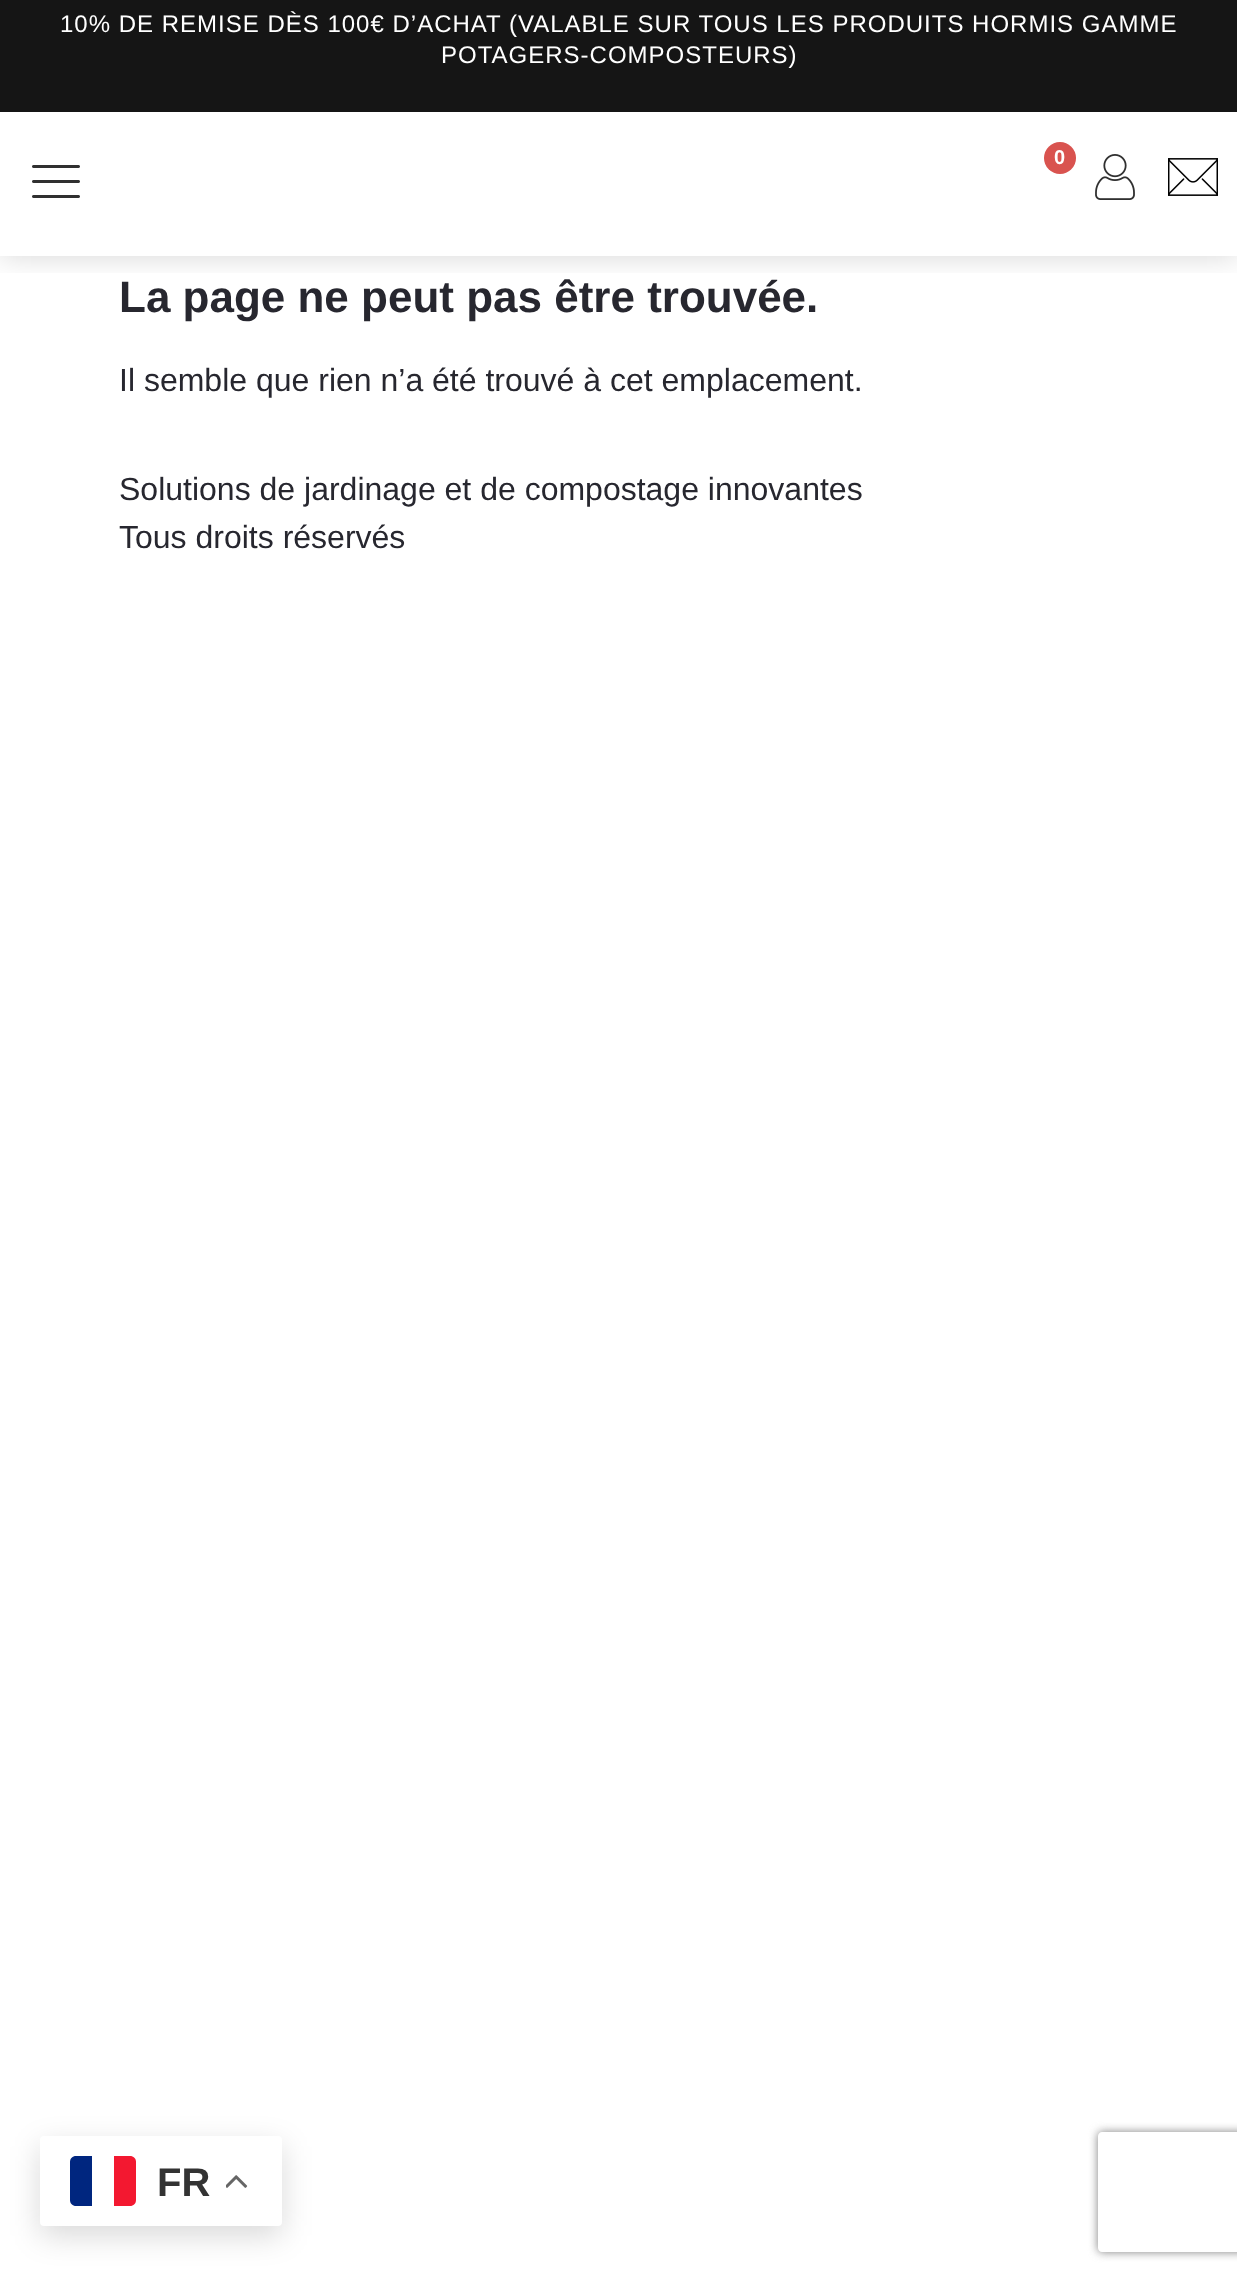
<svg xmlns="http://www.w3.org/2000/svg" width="1237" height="2279">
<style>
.a{font:24px Liberation Sans;letter-spacing:1px;fill:#fff}
.b{font:bold 20px Liberation Sans;fill:#fff}
.c{font:bold 44px Liberation Sans;fill:#27272f}
.d{font:32px Liberation Sans;fill:#27272f}
.e{font:bold 40px Liberation Sans;fill:#333}
</style>
<defs>
<clipPath id="clip1"><path d="M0 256h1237v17H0z"/></clipPath>
<clipPath id="clip2"><path d="M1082 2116h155v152h-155zm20 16h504c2 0 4 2 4 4v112c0 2-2 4-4 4h-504c-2 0-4-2-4-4v-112c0-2 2-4 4-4z" clip-rule="evenodd"/></clipPath>
</defs>
<rect width="100%" height="100%" fill="#fff"/>
<g clip-path="url(#clip1)">
<path fill="#00000029" filter="blur(15px)" d="M0 0h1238v256H0z"/>
</g>
<path fill="#151515" d="M0 0h1237v112H0z"/>
<circle fill="#d9534f" cx="1060" cy="158" r="16"/>
<image href="1.png" x="1095" y="154" width="40" height="46"/>
<image href="2.png" x="1168" y="158" width="50" height="38"/>
<image href="3.png" x="32" y="165" width="48" height="33"/>
<rect fill="#00000026" filter="blur(15px)" x="40" y="2146" width="242" height="90" rx="4"/>
<rect fill="#fff" x="40" y="2136" width="242" height="90" rx="4"/>
<path fill="#00267f" d="M76 2156h16v50h-16c-3.5 0-6-2.5-6-6v-38c0-3.5 2.5-6 6-6z"/>
<path fill="#f31830" d="M114 2156h16c3.5 0 6 2.5 6 6v38c0 3.5-2.5 6-6 6h-16z"/>
<image href="4.png" x="226" y="2175" width="22" height="13"/>
<g clip-path="url(#clip2)">
<rect fill="#808080" filter="blur(5px)" x="1098" y="2132" width="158" height="120" rx="4"/>
</g>
<text class="a" x="60" y="32">10% DE REMISE DÈS 100€ D’ACHAT (VALABLE SUR TOUS LES PRODUITS HORMIS GAMME</text>
<text class="a" x="441" y="63">POTAGERS-COMPOSTEURS)</text>
<text class="b" x="1054" y="164">0</text>
<text class="c" x="119" y="312">La page ne peut pas être trouvée.</text>
<text class="d" x="119" y="391">Il semble que rien n’a été trouvé à cet emplacement.</text>
<text class="d" x="119" y="500">Solutions de jardinage et de compostage innovantes</text>
<text class="d" x="119" y="548">Tous droits réservés</text>
<text class="e" x="157" y="2196">FR</text>
</svg>
